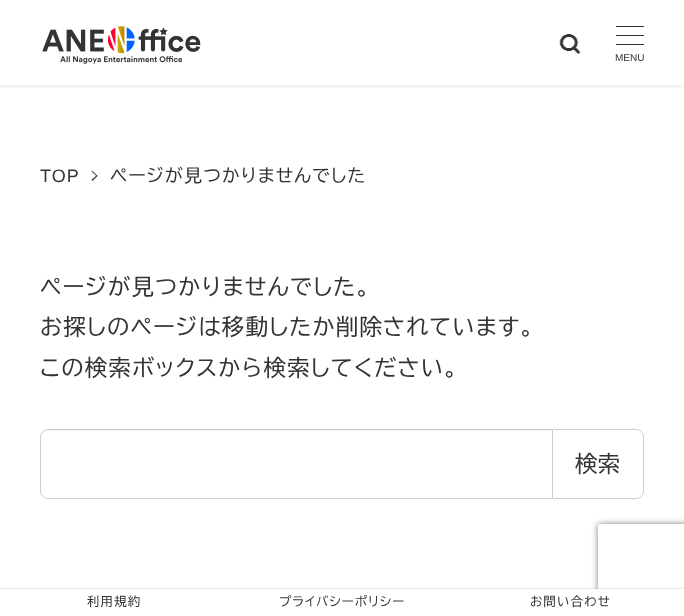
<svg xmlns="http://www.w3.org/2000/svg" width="684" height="616">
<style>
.a{font:10px Liberation Sans;fill:#333}
.b{font:18px Liberation Sans;letter-spacing:1.1px;fill:#333}
.c{font:18px BIZ UDPGothic;letter-spacing:1.1px;fill:#333}
.d{font:22.5px BIZ UDPGothic;letter-spacing:1.1px;fill:#333}
.e{font:22.5px BIZ UDPGothic;fill:#333}
.f{font:12.5px BIZ UDPGothic;letter-spacing:1.1px;fill:#333}
</style>
<defs>
<clipPath id="clip1"><path d="M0 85h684v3H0z"/></clipPath>
<clipPath id="clip2"><path d="M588 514h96v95h-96zm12.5 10h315c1.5 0 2.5 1 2.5 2.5v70c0 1.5-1 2.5-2.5 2.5h-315c-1.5 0-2.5-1-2.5-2.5v-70c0-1.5 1-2.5 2.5-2.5z" clip-rule="evenodd"/></clipPath>
</defs>
<rect width="100%" height="100%" fill="#fff"/>
<g clip-path="url(#clip1)">
<path fill="#0000000d" filter="blur(1px)" d="M-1 0h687v88H-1z"/>
</g>
<image href="1.png" x="42" y="26" width="159" height="38"/>
<image href="2.png" x="559" y="34" width="22" height="20"/>
<path fill="#333" d="M616 26h28v1H616z"/>
<path fill="#333" d="M616 35h28v1H616z"/>
<path fill="#333" d="M616 44h28v1H616z"/>
<path fill="#333" d="M92.5 171l5 5l-.5 .5l-5.5-5z"/>
<path fill="#333" d="M97 175l.5 1l-5 5l-1-1z"/>
<path fill="none" stroke="#ccc" d="M551.5 429.5h84.5c4 0 7.5 3.5 7.5 7.5v54c0 4-3.5 7.5-7.5 7.5h-84.5z"/>
<path fill="#fff" d="M48 429h505v70h-505c-4.5 0-8-3.5-8-8v-54c0-4.5 3.5-8 8-8z"/>
<path fill="#f6f6f6" d="M48 431h503v-1h-504c-3 0-6 3-6 6v2c0-4 3-7 7-7z"/>
<path fill="none" stroke="#ccc" d="M48 429.5h504.5v69h-504.5c-4 0-7.5-3.5-7.5-7.5v-54c0-4 3.5-7.5 7.5-7.5z"/>
<path fill="#00000040" filter="blur(1px)" d="M0 589h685v27H0z"/>
<g clip-path="url(#clip2)">
<rect fill="#808080" filter="blur(3px)" x="598" y="524" width="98" height="75" rx="2.5"/>
</g>
<path fill="#fff" d="M0 589h684v27H0z"/>
<text class="a" x="615" y="61">MENU</text>
<text class="b" x="40" y="182">TOP</text>
<text class="c" x="110" y="182">ページが見つかりませんでした</text>
<text class="d" x="40" y="295">ページが見つかりませんでした。</text>
<text class="d" x="40" y="335">お探しのページは移動したか削除されています。</text>
<text class="d" x="40" y="376">この検索ボックスから検索してください。</text>
<text class="e" x="575" y="472">検索</text>
<text class="f" x="87" y="606">利用規約</text>
<text class="f" x="279" y="606">プライバシーポリシー</text>
<text class="f" x="530" y="606">お問い合わせ</text>
</svg>
